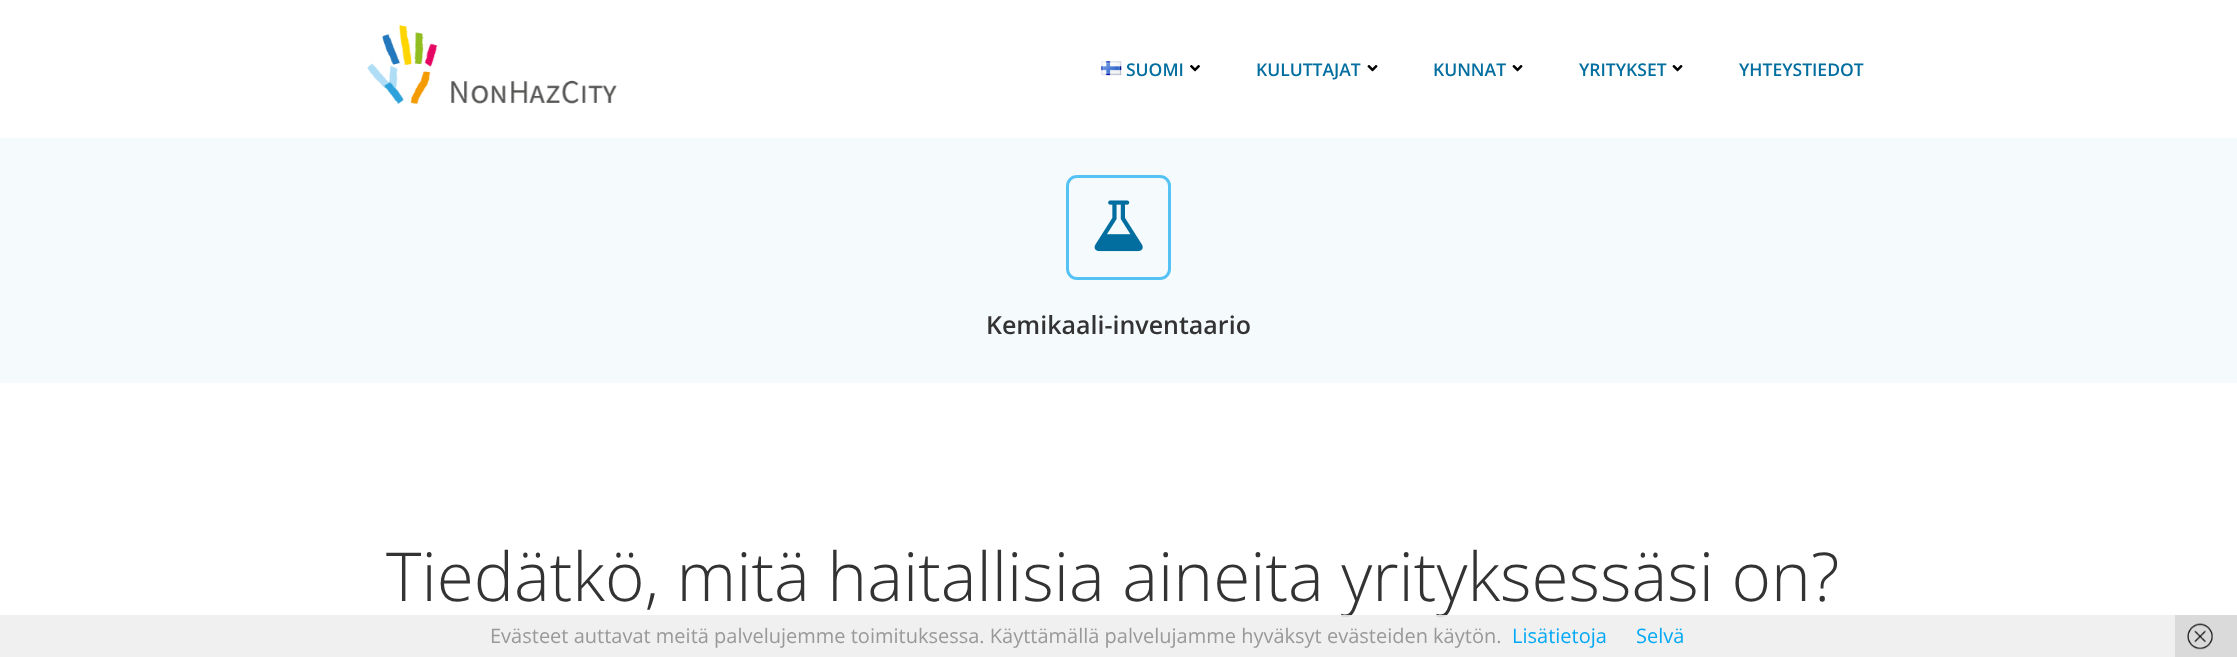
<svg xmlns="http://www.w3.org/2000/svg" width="2237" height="657">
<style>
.a{font:600 17.5px Open Sans;fill:#026e9f}
.b{font:600 25px Open Sans;fill:#333}
.c{font:300 67.5px Open Sans;fill:#333}
.d{font:20px Open Sans;fill:#999}
.e{font:20px Open Sans;fill:#03a9f4}
</style>
<rect width="100%" height="100%" fill="#fff"/>
<image href="1.png" x="367" y="25" width="250" height="79"/>
<image href="2.png" x="1101" y="61" width="21" height="15"/>
<image href="3.png" x="1190" y="64" width="10" height="8"/>
<image href="4.png" x="1367" y="65" width="11" height="7"/>
<image href="4.png" x="1512" y="65" width="11" height="7"/>
<image href="4.png" x="1672" y="65" width="11" height="7"/>
<path fill="#f5fafd" d="M0 138h2237v245H0z"/>
<rect fill="none" stroke="#54c2f4" stroke-width="3" x="1067.5" y="176.5" width="102" height="102" rx="9.5"/>
<image href="5.png" x="1094" y="200" width="49" height="52"/>
<path fill="#dadada" d="M2175 615h62v42H2175z"/>
<image href="6.png" x="2187" y="623" width="26" height="27"/>
<text class="a" x="1126" y="76">SUOMI</text>
<text class="a" x="1256" y="76">KULUTTAJAT</text>
<text class="a" x="1433" y="76">KUNNAT</text>
<text class="a" x="1579" y="76">YRITYKSET</text>
<text class="a" x="1739" y="76">YHTEYSTIEDOT</text>
<text class="b" x="986" y="334">Kemikaali-inventaario</text>
<text class="c" x="386" y="601">Tiedätkö, mitä haitallisia aineita yrityksessäsi on?</text>
<path fill="#eeeeeee6" d="M0 615h2175v42H0z"/>
<text class="d" x="490" y="643">Evästeet auttavat meitä palvelujemme toimituksessa. Käyttämällä palvelujamme hyväksyt evästeiden käytön.</text>
<text class="e" x="1512" y="643">Lisätietoja</text>
<text class="e" x="1636" y="643">Selvä</text>
</svg>
